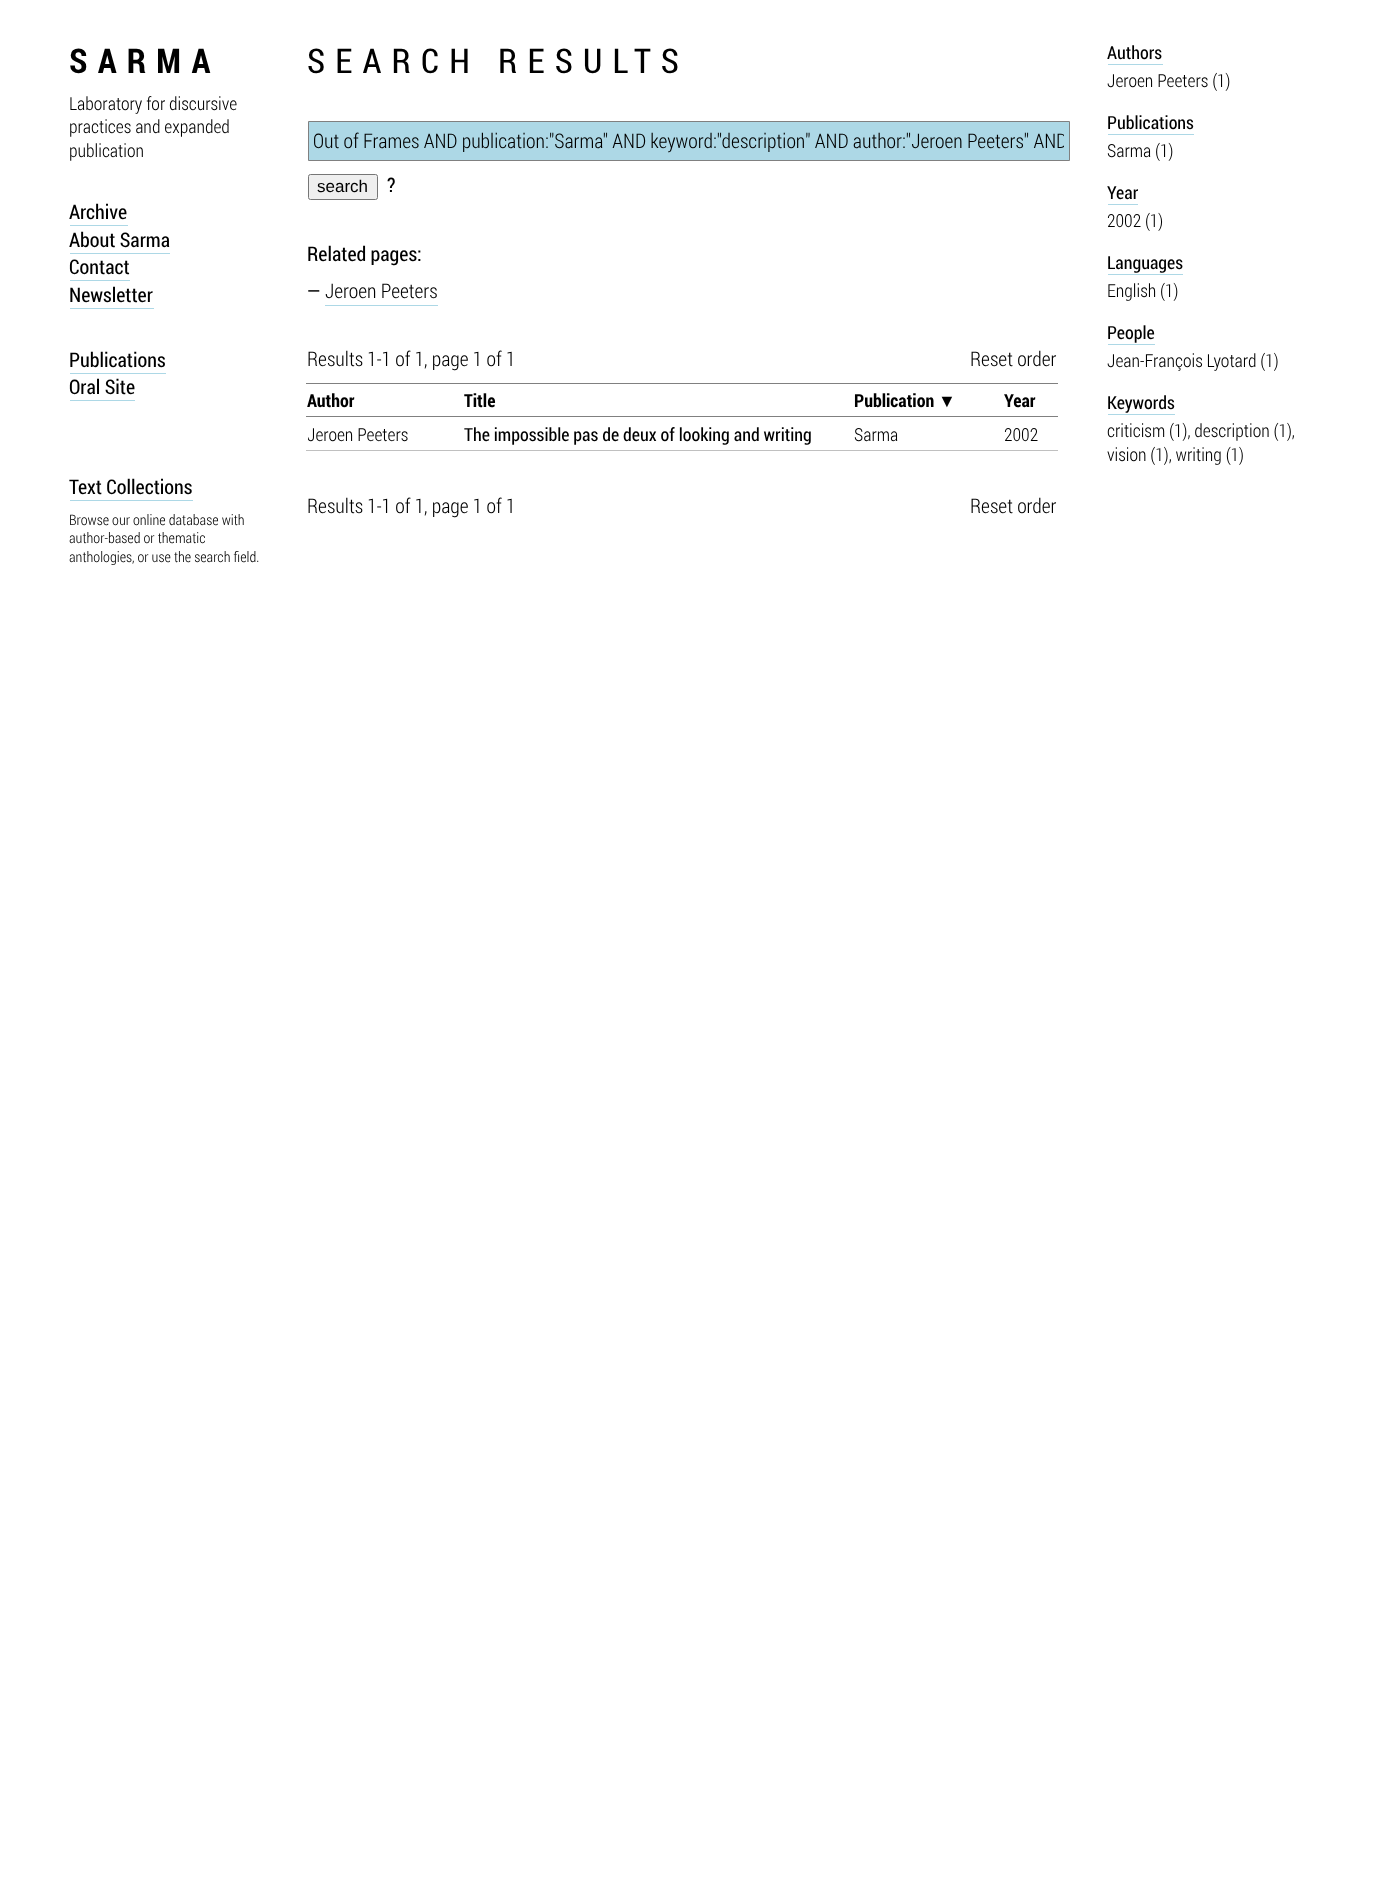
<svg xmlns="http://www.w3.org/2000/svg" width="1388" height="1902">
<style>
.a{font:bold 34px Roboto;letter-spacing:10.25px;fill:#000}
.b{font:300 18px Roboto Condensed;fill:#000}
.c{font:20px Roboto;fill:#000}
.d{font:300 14.4px Roboto Condensed;fill:#000}
.e{font:34px Roboto;letter-spacing:10.25px;fill:#000}
.f{font:300 20px Roboto Condensed;fill:#000}
.g{font:17px Liberation Sans;fill:#000}
.h{font:bold 18px Roboto;fill:#000}
.i{font:bold 18px Liberation Sans;fill:#000}
.j{font:18px Roboto;fill:#000}
</style>
<defs>
<clipPath id="clip1"><path d="M314 128h750v27H314z"/></clipPath>
<clipPath id="clip2"><path d="M308 416h157v34H308z"/></clipPath>
</defs>
<rect width="100%" height="100%" fill="#fff"/>
<path fill="#add8e6" d="M70 225h58v1H70z"/>
<path fill="#add8e6" d="M70 253h100v1H70z"/>
<path fill="#add8e6" d="M70 280h60v1H70z"/>
<path fill="#add8e6" d="M70 308h84v1H70z"/>
<path fill="#add8e6" d="M70 373h96v1H70z"/>
<path fill="#add8e6" d="M70 400h65v1H70z"/>
<path fill="#add8e6" d="M70 500h123v1H70z"/>
<path fill="#add8e6" stroke="#808080" d="M308.5 121.5h761v39H308.5z"/>
<rect fill="#efefef" stroke="#767676" x="308.5" y="174.5" width="69" height="25" rx="2"/>
<path fill="#add8e6" d="M325 305h113v1H325z"/>
<path fill="#808080" d="M306 383h752v1H306z"/>
<path fill="#808080" d="M306 416h752v1H306z"/>
<path fill="#c0c0c0" d="M306 450h752v1H306z"/>
<path fill="#add8e6" d="M1108 64h55v1H1108z"/>
<path fill="#add8e6" d="M1108 134h86v1H1108z"/>
<path fill="#add8e6" d="M1108 204h30v1H1108z"/>
<path fill="#add8e6" d="M1108 274h75v1H1108z"/>
<path fill="#add8e6" d="M1108 344h47v1H1108z"/>
<path fill="#add8e6" d="M1108 414h67v1H1108z"/>
<text class="a" x="69" y="73">SARMA</text>
<text class="b" x="69" y="110">Laboratory for discursive</text>
<text class="b" x="69" y="133">practices and expanded</text>
<text class="b" x="69" y="157">publication</text>
<text class="c" x="69" y="219">Archive</text>
<text class="c" x="69" y="247">About Sarma</text>
<text class="c" x="69" y="274">Contact</text>
<text class="c" x="69" y="302">Newsletter</text>
<text class="c" x="69" y="367">Publications</text>
<text class="c" x="69" y="394">Oral Site</text>
<text class="c" x="69" y="494">Text Collections</text>
<text class="d" x="69" y="525">Browse our online database with</text>
<text class="d" x="69" y="543">author-based or thematic</text>
<text class="d" x="69" y="562">anthologies, or use the search field.</text>
<text class="e" x="307" y="73">SEARCH RESULTS</text>
<g clip-path="url(#clip1)">
<text class="f" x="313" y="148">Out of Frames AND publication:"Sarma" AND keyword:"description" AND author:"Jeroen Peeters" AND</text>
</g>
<text class="g" x="317" y="192">search</text>
<text class="c" x="387" y="192">?</text>
<text class="c" x="307" y="261">Related pages:</text>
<text class="c" x="307" y="298">—</text>
<text class="f" x="325" y="298">Jeroen Peeters</text>
<text class="f" x="307" y="366">Results 1-1 of 1, page 1 of 1</text>
<text class="f" x="970" y="366">Reset order</text>
<text class="h" x="307" y="407">Author</text>
<text class="h" x="464" y="407">Title</text>
<text class="h" x="854" y="407">Publication</text>
<text class="i" x="938" y="407">▼</text>
<text class="h" x="1004" y="407">Year</text>
<g clip-path="url(#clip2)">
<text class="b" x="307" y="441">Jeroen Peeters</text>
</g>
<text class="j" x="464" y="441">The impossible pas de deux of looking and writing</text>
<text class="b" x="854" y="441">Sarma</text>
<text class="b" x="1004" y="441">2002</text>
<text class="f" x="307" y="513">Results 1-1 of 1, page 1 of 1</text>
<text class="f" x="970" y="513">Reset order</text>
<text class="j" x="1107" y="59">Authors</text>
<text class="b" x="1107" y="87">Jeroen Peeters (1)</text>
<text class="j" x="1107" y="129">Publications</text>
<text class="b" x="1107" y="157">Sarma (1)</text>
<text class="j" x="1107" y="199">Year</text>
<text class="b" x="1107" y="227">2002 (1)</text>
<text class="j" x="1107" y="269">Languages</text>
<text class="b" x="1107" y="297">English (1)</text>
<text class="j" x="1107" y="339">People</text>
<text class="b" x="1107" y="367">Jean-François Lyotard (1)</text>
<text class="j" x="1107" y="409">Keywords</text>
<text class="b" x="1107" y="437">criticism (1), description (1),</text>
<text class="b" x="1107" y="461">vision (1), writing (1)</text>
</svg>
